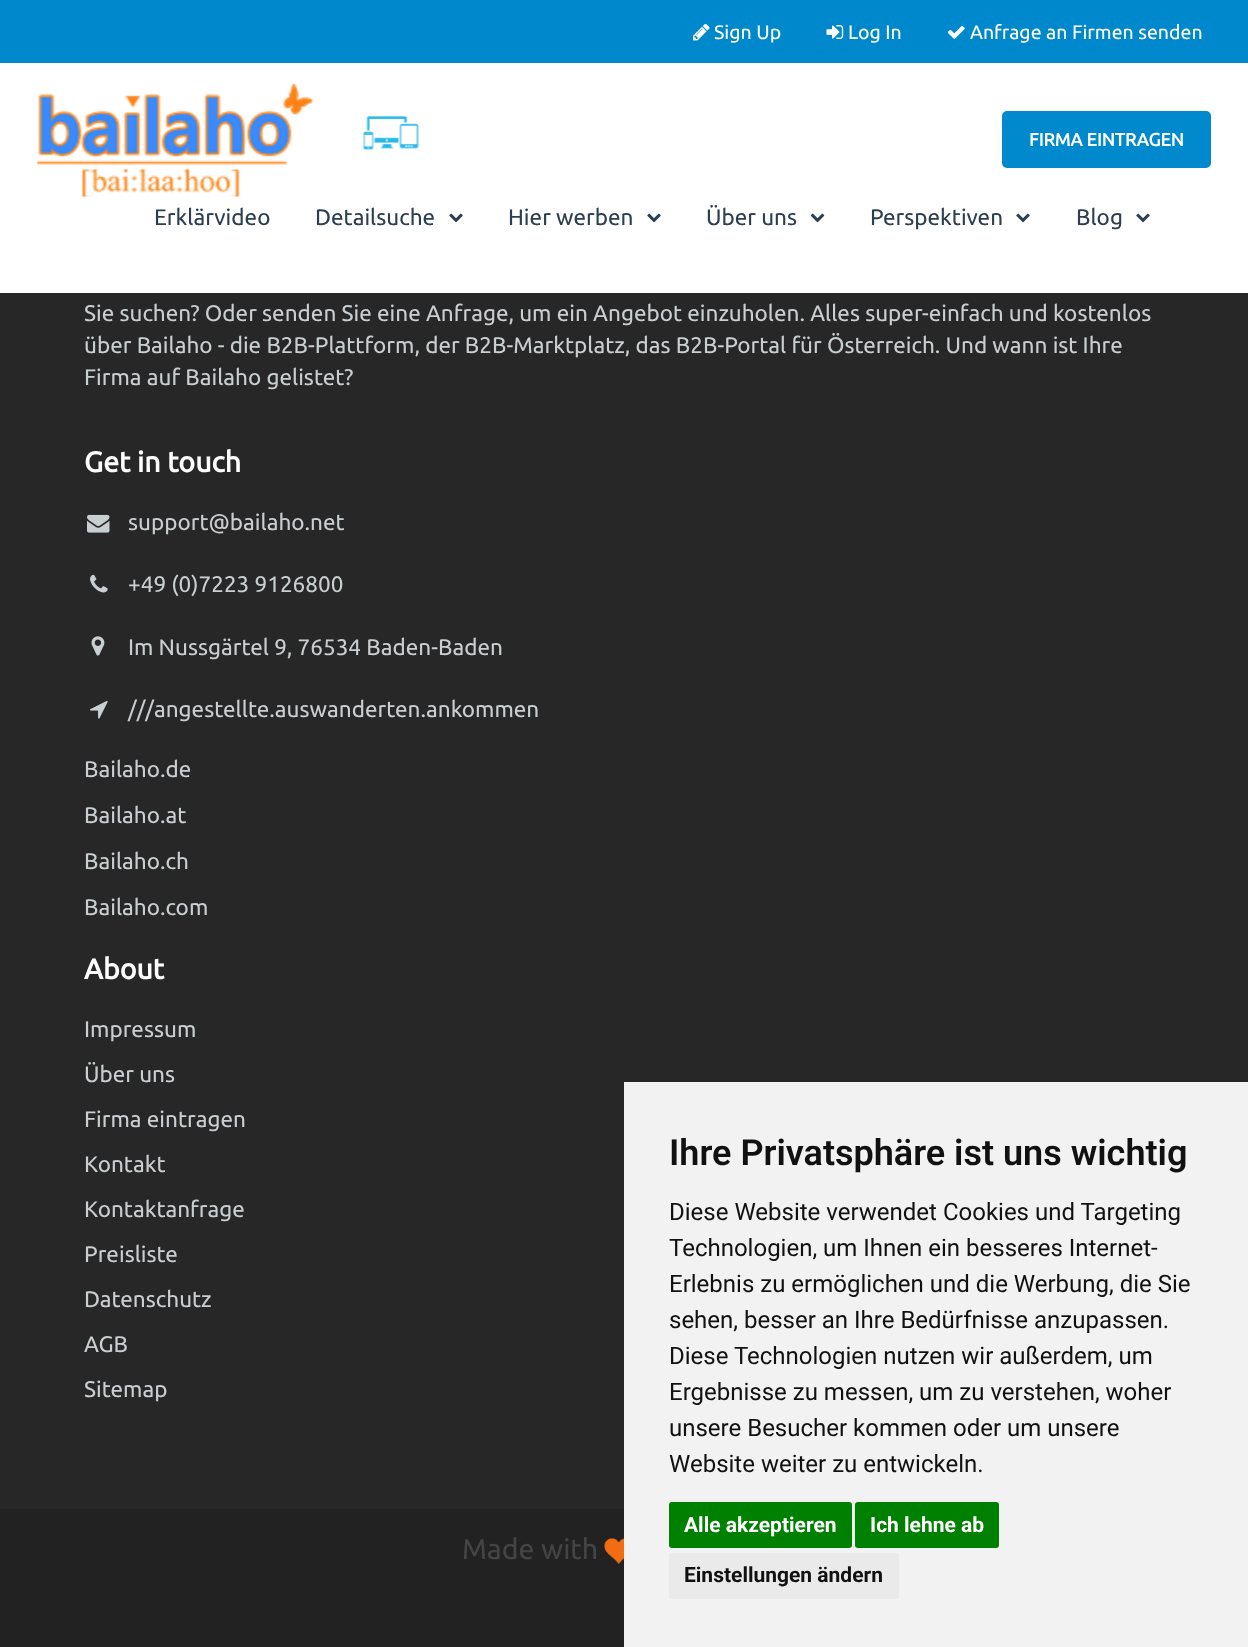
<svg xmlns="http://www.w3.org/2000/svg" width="1248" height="1647">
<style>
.a{font:19.5px Ubuntu;fill:#fff}
.b{font:bold 18px Ubuntu;fill:#fff}
.c{font:22.5px Ubuntu;fill:#2c3e50}
.d{font:22.5px Ubuntu;fill:#c9ced0}
.e{font:bold 28.5px Ubuntu;fill:#fff}
.f{font:28.5px Ubuntu;fill:#444}
.g{font:600 36px Roboto;fill:#111}
.h{font:24px Roboto;fill:#111}
.i{font:bold 21px Roboto;fill:#fff}
.j{font:bold 21px Roboto;fill:#111}
</style>
<rect width="100%" height="100%" fill="#272727"/>
<path fill="#08c" d="M0 0h1248v63H0z"/>
<image href="1.png" x="693" y="23" width="17" height="18"/>
<image href="2.png" x="826" y="25" width="18" height="14"/>
<image href="3.png" x="947" y="25" width="18" height="14"/>
<path fill="#fff" d="M0 63h1248v230H0z"/>
<image href="4.png" x="37" y="84" width="276" height="113"/>
<image href="5.png" x="362" y="116" width="57" height="34"/>
<rect fill="#0089cc" stroke="#0089cc" stroke-width="3" x="1003.5" y="112.5" width="206" height="54" rx="3.5"/>
<image href="6.png" x="449" y="213" width="14" height="10"/>
<image href="6.png" x="647" y="213" width="14" height="10"/>
<image href="7.png" x="810" y="213" width="15" height="10"/>
<image href="6.png" x="1016" y="213" width="14" height="10"/>
<image href="6.png" x="1136" y="213" width="14" height="10"/>
<image href="8.png" x="87" y="514" width="23" height="19"/>
<image href="9.png" x="90" y="574" width="18" height="19"/>
<image href="10.png" x="91" y="636" width="14" height="20"/>
<image href="11.png" x="90" y="701" width="18" height="18"/>
<path fill="#222" d="M0 1509h624v138H0z"/>
<image href="12.png" x="604" y="1538" width="20" height="26"/>
<path fill="#f2f2f2" d="M624 1082h624v565H624z"/>
<rect fill="#008000" x="669" y="1502" width="183" height="46" rx="3"/>
<rect fill="#008000" x="855" y="1502" width="144" height="46" rx="3"/>
<rect fill="#eaeaea" x="669" y="1553" width="230" height="46" rx="3"/>
<text class="a" x="714" y="39">Sign Up</text>
<text class="a" x="848" y="39">Log In</text>
<text class="a" x="970" y="39">Anfrage an Firmen senden</text>
<text class="b" x="1029" y="146">FIRMA EINTRAGEN</text>
<text class="c" x="154" y="225">Erklärvideo</text>
<text class="c" x="315" y="225">Detailsuche</text>
<text class="c" x="508" y="225">Hier werben</text>
<text class="c" x="706" y="225">Über uns</text>
<text class="c" x="870" y="225">Perspektiven</text>
<text class="c" x="1076" y="225">Blog</text>
<text class="d" x="84" y="321">Sie suchen? Oder senden Sie eine Anfrage, um ein Angebot einzuholen. Alles super-einfach und kostenlos</text>
<text class="d" x="84" y="353">über Bailaho - die B2B-Plattform, der B2B-Marktplatz, das B2B-Portal für Österreich. Und wann ist Ihre</text>
<text class="d" x="84" y="385">Firma auf Bailaho gelistet?</text>
<text class="e" x="84" y="472">Get in touch</text>
<text class="d" x="128" y="530">support@bailaho.net</text>
<text class="d" x="128" y="592">+49 (0)7223 9126800</text>
<text class="d" x="128" y="655">Im Nussgärtel 9, 76534 Baden-Baden</text>
<text class="d" x="128" y="717">///angestellte.auswanderten.ankommen</text>
<text class="d" x="84" y="777">Bailaho.de</text>
<text class="d" x="84" y="823">Bailaho.at</text>
<text class="d" x="84" y="869">Bailaho.ch</text>
<text class="d" x="84" y="915">Bailaho.com</text>
<text class="e" x="84" y="979">About</text>
<text class="d" x="84" y="1037">Impressum</text>
<text class="d" x="84" y="1082">Über uns</text>
<text class="d" x="84" y="1127">Firma eintragen</text>
<text class="d" x="84" y="1172">Kontakt</text>
<text class="d" x="84" y="1217">Kontaktanfrage</text>
<text class="d" x="84" y="1262">Preisliste</text>
<text class="d" x="84" y="1307">Datenschutz</text>
<text class="d" x="84" y="1352">AGB</text>
<text class="d" x="84" y="1397">Sitemap</text>
<text class="f" x="462" y="1559">Made with</text>
<text class="g" x="669" y="1165">Ihre Privatsphäre ist uns wichtig</text>
<text class="h" x="669" y="1220">Diese Website verwendet Cookies und Targeting</text>
<text class="h" x="669" y="1256">Technologien, um Ihnen ein besseres Internet-</text>
<text class="h" x="669" y="1292">Erlebnis zu ermöglichen und die Werbung, die Sie</text>
<text class="h" x="669" y="1328">sehen, besser an Ihre Bedürfnisse anzupassen.</text>
<text class="h" x="669" y="1364">Diese Technologien nutzen wir außerdem, um</text>
<text class="h" x="669" y="1400">Ergebnisse zu messen, um zu verstehen, woher</text>
<text class="h" x="669" y="1436">unsere Besucher kommen oder um unsere</text>
<text class="h" x="669" y="1472">Website weiter zu entwickeln.</text>
<text class="i" x="684" y="1532">Alle akzeptieren</text>
<text class="i" x="870" y="1532">Ich lehne ab</text>
<text class="j" x="684" y="1582">Einstellungen ändern</text>
</svg>
